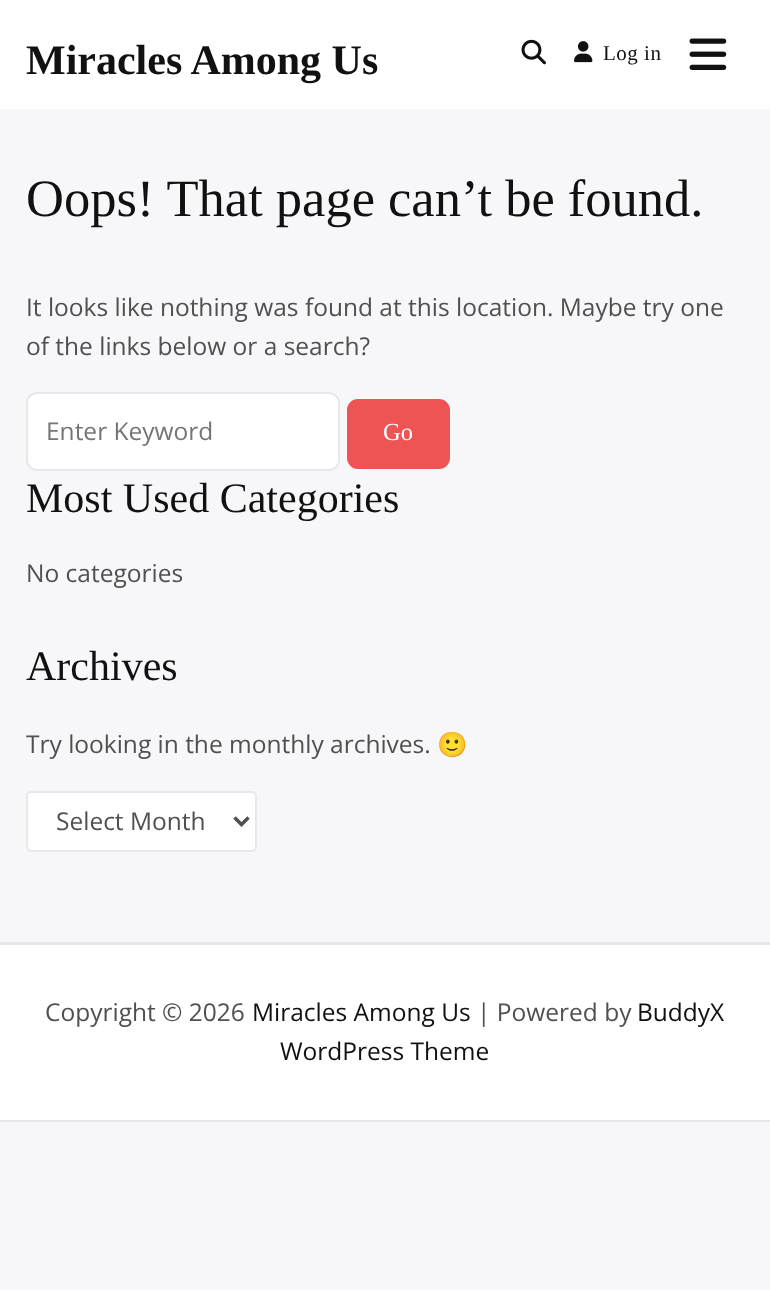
<svg xmlns="http://www.w3.org/2000/svg" width="770" height="1290">
<style>
.a{font:bold 42px Liberation Serif;fill:#111}
.b{font:21px Liberation Serif;letter-spacing:0.5px;fill:#111}
.c{font:52.5px Liberation Serif;fill:#111}
.d{font:24.5px Open Sans;fill:#505050}
.e{font:24.5px Open Sans;fill:#757575}
.f{font:24.5px Liberation Serif;fill:#fff}
.g{font:42px Liberation Serif;fill:#111}
.h{font:24.5px Noto Color Emoji;fill:#505050}
.i{font:24.5px Open Sans;fill:#111}
</style>
<rect width="100%" height="100%" fill="#f7f7f9"/>
<path fill="#fff" d="M0 0h770v109H0z"/>
<image href="1.png" x="521" y="39" width="25" height="26"/>
<image href="2.png" x="574" y="41" width="19" height="22"/>
<image href="3.png" x="689" y="38" width="38" height="32"/>
<rect fill="#fff" stroke="#e8e8e8" stroke-width="2" x="27" y="393" width="312" height="77" rx="10"/>
<rect fill="#ef5455" stroke="#ef5455" stroke-width="2" x="348" y="400" width="101" height="68" rx="10"/>
<rect fill="#fff" stroke="#e8e8e8" stroke-width="2" x="27" y="792" width="229" height="59" rx="4"/>
<path fill="none" stroke="#505050" stroke-width="3.5" d="M234.5 817.5l7 7l7-7"/>
<path fill="#e8e8e8" d="M0 942h770v3H0z"/>
<path fill="#fff" d="M0 945h770v175H0z"/>
<path fill="#e8e8e8" d="M0 1120h770v2H0z"/>
<text class="a" x="26" y="74">Miracles Among Us</text>
<text class="b" x="603" y="60">Log in</text>
<text class="c" x="26" y="216">Oops! That page can’t be found.</text>
<text class="d" x="26" y="316">It looks like nothing was found at this location. Maybe try one</text>
<text class="d" x="26" y="355">of the links below or a search?</text>
<text class="e" x="46" y="440">Enter Keyword</text>
<text class="f" x="383" y="440">Go</text>
<text class="g" x="26" y="512">Most Used Categories</text>
<text class="d" x="26" y="582">No categories</text>
<text class="g" x="26" y="680">Archives</text>
<text class="d" x="26" y="753">Try looking in the monthly archives.</text>
<text class="h" x="437" y="753">🙂</text>
<text class="d" x="56" y="830">Select Month</text>
<text class="d" x="45" y="1021">Copyright © 2026</text>
<text class="i" x="252" y="1021">Miracles Among Us</text>
<text class="d" x="477" y="1021">| Powered by</text>
<text class="i" x="637" y="1021">BuddyX</text>
<text class="i" x="280" y="1060">WordPress Theme</text>
</svg>
